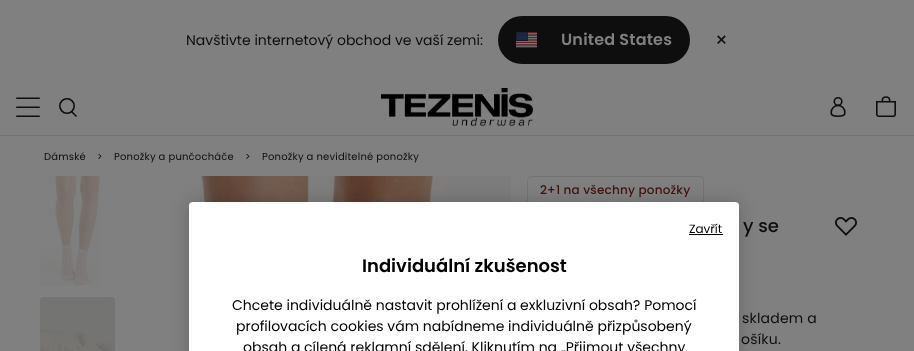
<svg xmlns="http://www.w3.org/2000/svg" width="914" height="351">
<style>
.a{font:14px Poppins;fill:#0e0e0e}
.b{font:600 16px Poppins;letter-spacing:0.2px;fill:#808080}
.c{font:20px Poppins;letter-spacing:0.2px;fill:#0e0e0e}
.d{font:10px Poppins;letter-spacing:0.2px;fill:#0e0e0e}
.e{font:500 12px Poppins;letter-spacing:0.2px;fill:#40130f}
.f{font:500 18px Poppins;fill:#0e0e0e}
.g{font:14px Poppins;letter-spacing:0.2px;fill:#0e0e0e}
.h{font:12px Poppins;fill:#000}
.i{font:600 18px Poppins;fill:#000}
.j{font:14px Poppins;fill:#000}
</style>
<rect width="100%" height="100%" fill="#808080"/>
<rect fill="#0e0e0e" x="498" y="16" width="192" height="48" rx="24"/>
<image href="1.png" x="516" y="32" width="21" height="16"/>
<path fill="#747474" d="M0 135h914v1H0z"/>
<image href="2.png" x="16" y="97" width="24" height="20"/>
<image href="3.png" x="59" y="98" width="18" height="19"/>
<image href="4.png" x="381" y="88" width="152" height="39"/>
<image href="5.png" x="830" y="97" width="16" height="20"/>
<image href="6.png" x="876" y="96" width="20" height="21"/>
<image href="7.png" x="40" y="176" width="60" height="110"/>
<image href="8.png" x="40" y="297" width="75" height="54"/>
<image href="9.png" x="200" y="176" width="311" height="26"/>
<rect fill="none" stroke="#747474" x="527.5" y="176.5" width="176" height="27" rx="3.5"/>
<image href="10.png" x="835" y="217" width="22" height="19"/>
<rect fill="#00000033" filter="blur(9px)" x="189" y="202" width="550" height="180" rx="4"/>
<rect fill="#fff" x="189" y="202" width="550" height="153" rx="4"/>
<path fill="#000" d="M689 234h34v1H689z"/>
<text class="a" x="186" y="45">Navštivte internetový obchod ve vaší zemi:</text>
<text class="b" x="561" y="45">United States</text>
<text class="c" x="715" y="47">×</text>
<text class="d" x="44" y="160">Dámské</text>
<text class="d" x="97" y="160">&gt;</text>
<text class="d" x="114" y="160">Ponožky a punčocháče</text>
<text class="d" x="245" y="160">&gt;</text>
<text class="d" x="262" y="160">Ponožky a neviditelné ponožky</text>
<text class="e" x="540" y="194">2+1 na všechny ponožky</text>
<text class="f" x="743" y="232">y se</text>
<text class="g" x="742" y="323">skladem a</text>
<text class="g" x="741" y="344">ošíku.</text>
<text class="h" x="689" y="233">Zavřít</text>
<text class="i" x="362" y="272">Individuální zkušenost</text>
<text class="j" x="232" y="310">Chcete individuálně nastavit prohlížení a exkluzivní obsah? Pomocí</text>
<text class="j" x="236" y="331">profilovacích cookies vám nabídneme individuálně přizpůsobený</text>
<text class="j" x="243" y="352">obsah a cílená reklamní sdělení. Kliknutím na „Přijmout všechny</text>
</svg>
